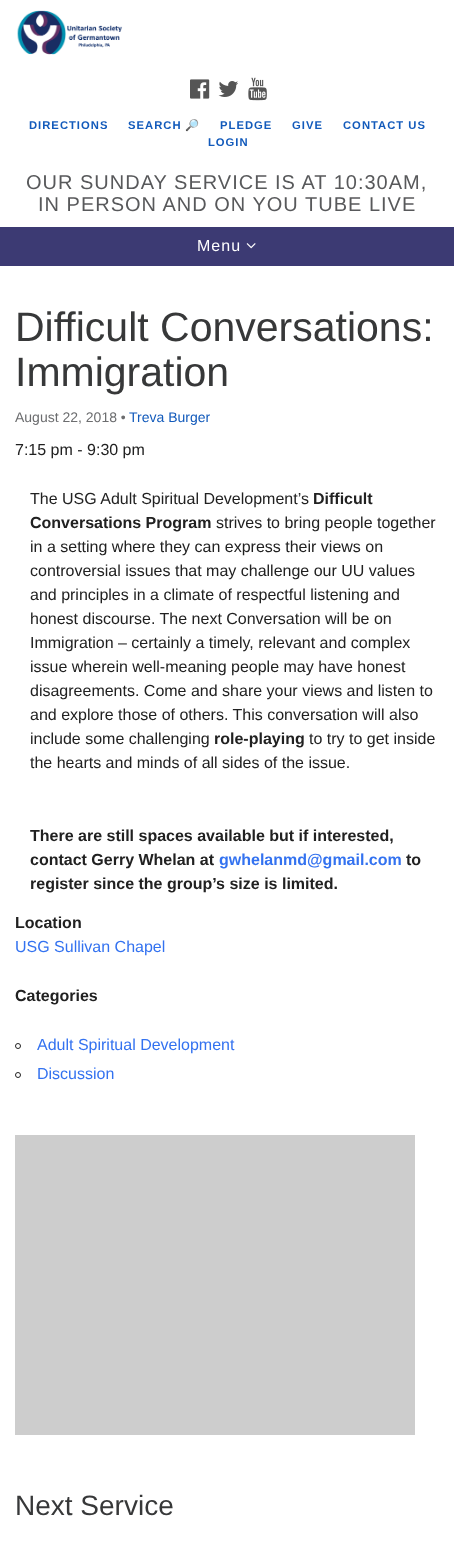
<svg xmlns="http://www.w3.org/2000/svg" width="454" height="1541">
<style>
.a{font:bold 11.25px Liberation Sans;letter-spacing:1px;fill:#125abb}
.b{font:bold 11.25px Noto Color Emoji;letter-spacing:1px;fill:#125abb}
.c{font:20px Liberation Sans;letter-spacing:1px;fill:#58595b}
.d{font:16px Liberation Sans;letter-spacing:1px;fill:#fff}
.e{font:41px Liberation Sans;fill:#373839}
.f{font:14px Liberation Sans;fill:#6c6d6f}
.g{font:14px Liberation Sans;fill:#125abb}
.h{font:16px Liberation Sans;fill:#212121}
.i{font:bold 16px Liberation Sans;fill:#212121}
.j{font:bold 16px Liberation Sans;fill:#3372f0}
.k{font:16px Liberation Sans;fill:#3372f0}
.l{font:28px Liberation Sans;fill:#373839}
</style>
<rect width="100%" height="100%" fill="#fff"/>
<image href="1.png" x="17" y="10" width="106" height="45"/>
<image href="2.png" x="190" y="79" width="20" height="20"/>
<image href="3.png" x="218" y="81" width="20" height="16"/>
<image href="4.png" x="248" y="77" width="19" height="24"/>
<path fill="#3c3a73" d="M0 227h454v39H0z"/>
<image href="5.png" x="246" y="243" width="10" height="6"/>
<circle fill="none" stroke="#212121" cx="18" cy="1046" r="2.5"/>
<circle fill="none" stroke="#212121" cx="18" cy="1075" r="2.5"/>
<path fill="#cdcdcd" d="M15 1135h400v300H15z"/>
<text class="a" x="29" y="129">DIRECTIONS</text>
<text class="a" x="128" y="129">SEARCH</text>
<text class="b" x="185" y="129">🔎</text>
<text class="a" x="220" y="129">PLEDGE</text>
<text class="a" x="292" y="129">GIVE</text>
<text class="a" x="343" y="129">CONTACT US</text>
<text class="a" x="208" y="146">LOGIN</text>
<text class="c" x="26" y="189">OUR SUNDAY SERVICE IS AT 10:30AM,</text>
<text class="c" x="38" y="211">IN PERSON AND ON YOU TUBE LIVE</text>
<text class="d" x="197" y="251">Menu</text>
<text class="e" x="15" y="341">Difficult Conversations:</text>
<text class="e" x="15" y="386">Immigration</text>
<text class="f" x="15" y="422">August 22, 2018 •</text>
<text class="g" x="129" y="422">Treva Burger</text>
<text class="h" x="15" y="455">7:15 pm - 9:30 pm</text>
<text class="h" x="30" y="504">The USG Adult Spiritual Development’s</text>
<text class="i" x="313" y="504">Difficult</text>
<text class="i" x="30" y="528">Conversations Program</text>
<text class="h" x="216" y="528">strives to bring people together</text>
<text class="h" x="30" y="552">in a setting where they can express their views on</text>
<text class="h" x="30" y="576">controversial issues that may challenge our UU values</text>
<text class="h" x="30" y="600">and principles in a climate of respectful listening and</text>
<text class="h" x="30" y="624">honest discourse. The next Conversation will be on</text>
<text class="h" x="30" y="648">Immigration – certainly a timely, relevant and complex</text>
<text class="h" x="30" y="672">issue wherein well-meaning people may have honest</text>
<text class="h" x="30" y="696">disagreements. Come and share your views and listen to</text>
<text class="h" x="30" y="720">and explore those of others. This conversation will also</text>
<text class="h" x="30" y="744">include some challenging</text>
<text class="i" x="214" y="744">role-playing</text>
<text class="h" x="309" y="744">to try to get inside</text>
<text class="h" x="30" y="768">the hearts and minds of all sides of the issue.</text>
<text class="i" x="30" y="841">There are still spaces available but if interested,</text>
<text class="i" x="30" y="865">contact Gerry Whelan at</text>
<text class="j" x="219" y="865">gwhelanmd@gmail.com</text>
<text class="i" x="406" y="865">to</text>
<text class="i" x="30" y="889">register since the group’s size is limited.</text>
<text class="i" x="15" y="928">Location</text>
<text class="k" x="15" y="952">USG Sullivan Chapel</text>
<text class="i" x="15" y="1001">Categories</text>
<text class="k" x="37" y="1050">Adult Spiritual Development</text>
<text class="k" x="37" y="1079">Discussion</text>
<text class="l" x="15" y="1515">Next Service</text>
</svg>
